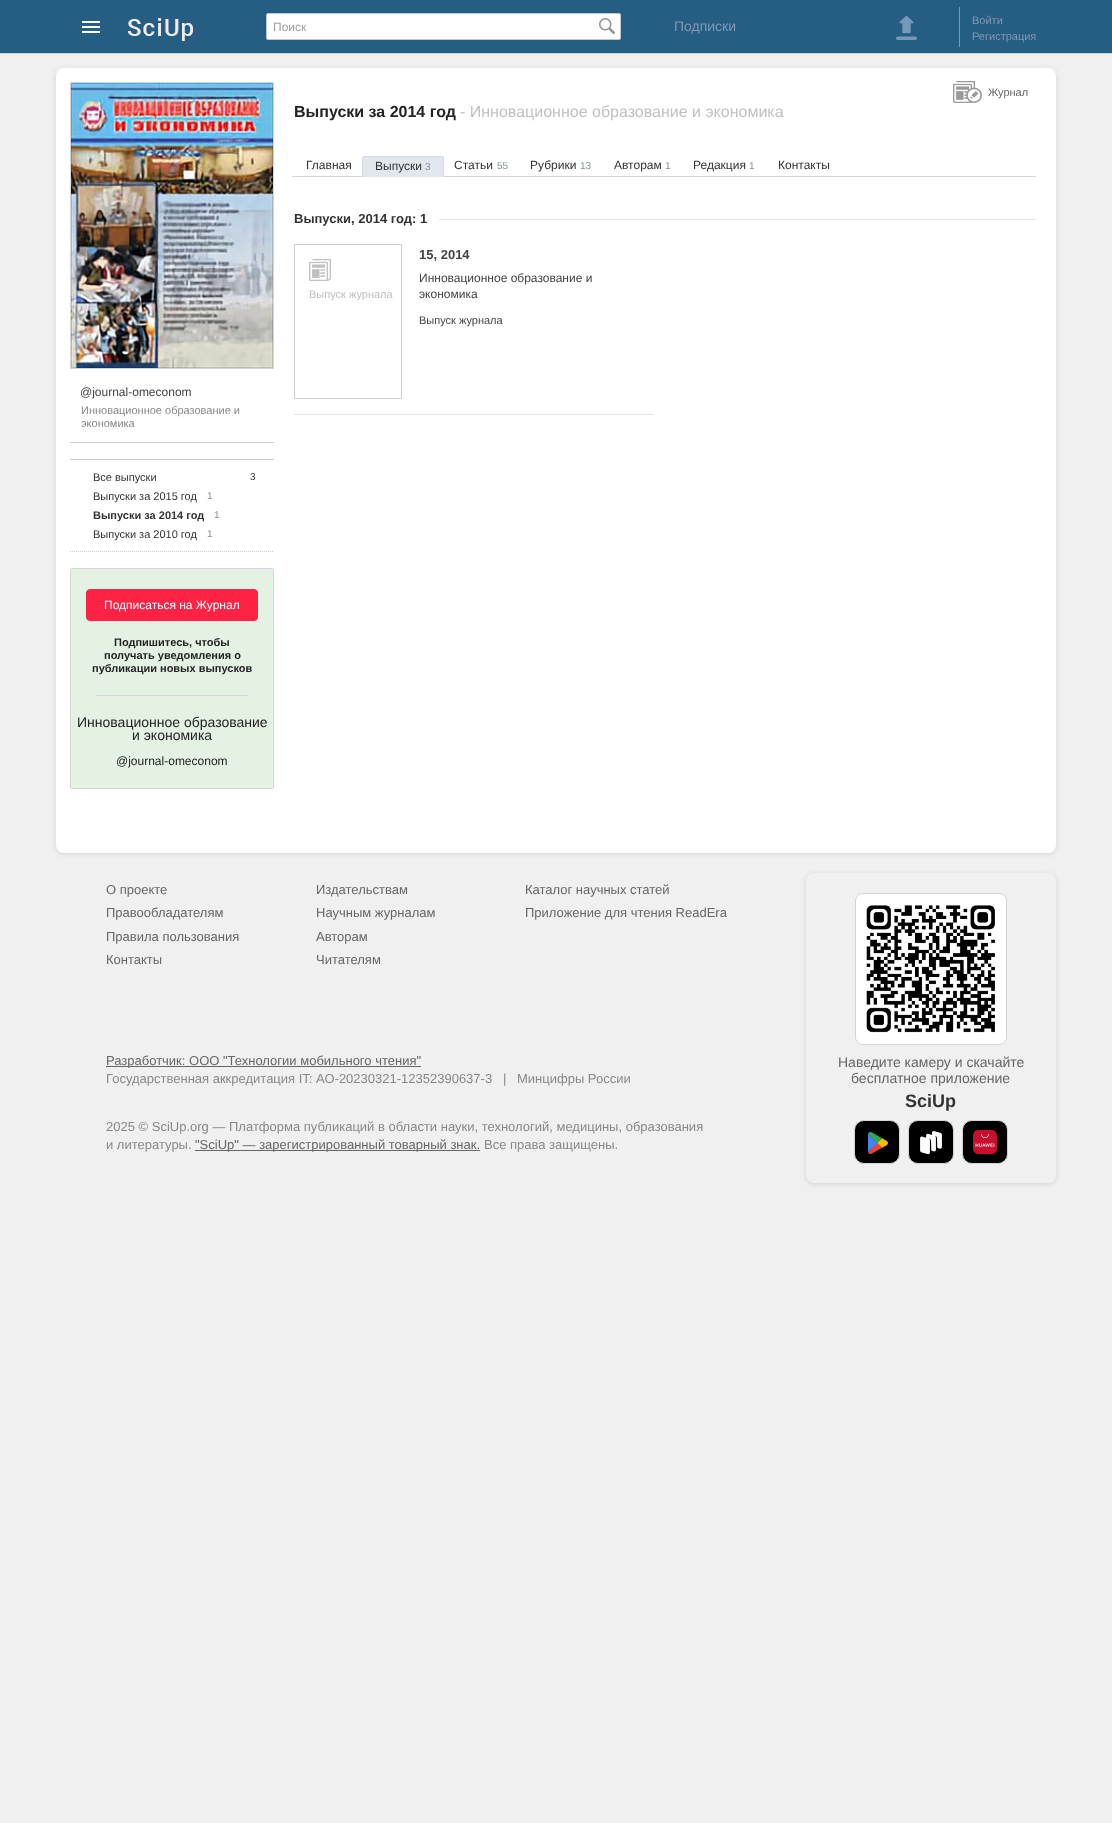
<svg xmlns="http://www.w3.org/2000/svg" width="1112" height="1823">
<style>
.a{font:12px Liberation Sans;fill:#9e9e9f}
.b{font:14px Liberation Sans;fill:#8098b4}
.c{font:11px Liberation Sans;fill:#8098b4}
.d{font:11px Liberation Sans;fill:#666}
.e{font:bold 16px Liberation Sans;fill:#232323}
.f{font:16px Liberation Sans;fill:#c0c0c0}
.g{font:12px Liberation Sans;fill:#333}
.h{font:10px Liberation Sans;fill:#858d9c}
.i{font:bold 13px Liberation Sans;fill:#333}
.j{font:11px Liberation Sans;fill:#c0c0c0}
.k{font:bold 13px Liberation Sans;fill:#444}
.l{font:12px Liberation Sans;fill:#444}
.m{font:11px Liberation Sans;fill:#444}
.n{font:11px Liberation Sans;fill:#888}
.o{font:11px Liberation Sans;fill:#333}
.p{font:10px Liberation Sans;fill:#333}
.q{font:bold 11px Liberation Sans;fill:#333}
.r{font:12px Liberation Sans;fill:#fff}
.s{font:bold 11px Liberation Sans;fill:#232323}
.t{font:14px Liberation Sans;fill:#232323}
.u{font:12px Liberation Sans;fill:#232323}
.v{font:13px Liberation Sans;fill:#666}
.w{font:13px Liberation Sans;fill:#888}
.x{font:14px Liberation Sans;fill:#666}
.y{font:bold 18px Liberation Sans;fill:#333}
</style>
<defs>
<clipPath id="clip1"><path d="M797 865h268v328h-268zm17 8h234c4.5 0 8 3.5 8 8v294c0 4.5-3.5 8-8 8h-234c-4.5 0-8-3.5-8-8v-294c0-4.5 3.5-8 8-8z" clip-rule="evenodd"/></clipPath>
</defs>
<rect width="100%" height="100%" fill="#f0f0f0"/>
<path fill="#265d83" d="M0 0h1112v53H0z"/>
<path fill="#c9d2d7" d="M0 53h1112v1H0z"/>
<image href="1.png" x="82" y="21" width="18" height="12"/>
<image href="2.png" x="127" y="18" width="67" height="23"/>
<rect fill="#fff" stroke="#c0c9d1" x="266.5" y="13.5" width="354" height="26" rx="1.5"/>
<image href="3.png" x="599" y="18" width="16" height="16"/>
<image href="4.png" x="896" y="16" width="21" height="24"/>
<path fill="#8098b4" d="M959 7h1v40H959z"/>
<rect fill="#d4d4d4" filter="blur(2.5px)" x="56" y="69" width="1000" height="785" rx="8"/>
<rect fill="#fff" x="56" y="68" width="1000" height="785" rx="8"/>
<image href="5.png" x="953" y="81" width="29" height="22"/>
<path fill="#d5d5d5" d="M292 176h744v1H292z"/>
<rect fill="#e1e7ed" x="362" y="156" width="82" height="21" rx="2"/>
<path fill="#d4dadf" d="M363 156h80v1H363z"/>
<path fill="#d4dadf" d="M443 157h1v19H443z"/>
<path fill="#d4dadf" d="M362 157h1v19H362z"/>
<path fill="#e5e5e5" d="M439 219h597v1H439z"/>
<path fill="#e5e5e5" d="M294 414h360v1H294z"/>
<path fill="none" stroke="#ccc" d="M294.5 244.5h107v154H294.5z"/>
<image href="6.png" x="309" y="259" width="22" height="22"/>
<image href="7.png" x="70" y="82" width="204" height="287"/>
<rect fill="none" stroke="#d5d5d5" x="70.5" y="82.5" width="203" height="286" rx="1.5"/>
<path fill="#ccc" d="M70 442h204v1H70z"/>
<path fill="#ccc" d="M70 459h204v1H70z"/>
<path fill="none" stroke="#ccc" stroke-dasharray="1 1" d="M70 551.5h204"/>
<rect fill="none" stroke="#d5d5d5" x="70.5" y="568.5" width="203" height="220" rx="1.5"/>
<rect fill="#e3f2e3" x="71" y="569" width="202" height="219" rx="1"/>
<rect fill="#fe2245" stroke="#fe2245" x="86.5" y="589.5" width="171" height="31" rx="3.5"/>
<path fill="#d5d5d5" d="M96 695h152v1H96z"/>
<path fill="#666" d="M106 1066h315v1H106z"/>
<path fill="#666" d="M195 1150h285v1H195z"/>
<g clip-path="url(#clip1)">
<rect fill="#d1d1d1" filter="blur(2.5px)" x="806" y="874" width="250" height="310" rx="8"/>
</g>
<rect fill="none" stroke="#d3d3d3" x="855.5" y="893.5" width="151" height="151" rx="7.5"/>
<image href="8.png" x="856" y="894" width="150" height="150"/>
<rect fill="#000" stroke="#d3d3d3" x="854.5" y="1120.5" width="45" height="43" rx="9.5"/>
<image href="9.png" x="868" y="1132" width="20" height="22"/>
<rect fill="#000" stroke="#d3d3d3" x="908.5" y="1120.5" width="45" height="43" rx="9.5"/>
<image href="10.png" x="920" y="1131" width="22" height="24"/>
<rect fill="#000" stroke="#d3d3d3" x="962.5" y="1120.5" width="45" height="43" rx="9.5"/>
<image href="11.png" x="973" y="1130" width="24" height="24"/>
<text class="a" x="273" y="31">Поиск</text>
<text class="b" x="674" y="31">Подписки</text>
<text class="c" x="972" y="24">Войти</text>
<text class="c" x="972" y="40">Регистрация</text>
<text class="d" x="988" y="96">Журнал</text>
<text class="e" x="294" y="117">Выпуски за 2014 год</text>
<text class="f" x="460" y="117">- Инновационное образование и экономика</text>
<text class="g" x="306" y="169">Главная</text>
<text class="g" x="375" y="170">Выпуски</text>
<text class="h" x="425" y="170">3</text>
<text class="g" x="454" y="169">Статьи</text>
<text class="h" x="497" y="169">55</text>
<text class="g" x="530" y="169">Рубрики</text>
<text class="h" x="580" y="169">13</text>
<text class="g" x="614" y="169">Авторам</text>
<text class="h" x="665" y="169">1</text>
<text class="g" x="693" y="169">Редакция</text>
<text class="h" x="749" y="169">1</text>
<text class="g" x="778" y="169">Контакты</text>
<text class="i" x="294" y="223">Выпуски, 2014 год: 1</text>
<text class="j" x="309" y="298">Выпуск журнала</text>
<text class="k" x="419" y="259">15, 2014</text>
<text class="l" x="419" y="282">Инновационное образование и</text>
<text class="l" x="419" y="298">экономика</text>
<text class="m" x="419" y="324">Выпуск журнала</text>
<text class="l" x="80" y="396">@journal-omeconom</text>
<text class="n" x="81" y="414">Инновационное образование и</text>
<text class="n" x="81" y="427">экономика</text>
<text class="o" x="93" y="481">Все выпуски</text>
<text class="p" x="250" y="480">3</text>
<text class="o" x="93" y="500">Выпуски за 2015 год</text>
<text class="h" x="207" y="499">1</text>
<text class="q" x="93" y="519">Выпуски за 2014 год</text>
<text class="h" x="214" y="518">1</text>
<text class="o" x="93" y="538">Выпуски за 2010 год</text>
<text class="h" x="207" y="537">1</text>
<text class="r" x="104" y="609">Подписаться на Журнал</text>
<text class="s" x="114" y="646">Подпишитесь, чтобы</text>
<text class="s" x="104" y="659">получать уведомления о</text>
<text class="s" x="92" y="672">публикации новых выпусков</text>
<text class="t" x="77" y="727">Инновационное образование</text>
<text class="t" x="132" y="740">и экономика</text>
<text class="u" x="116" y="765">@journal-omeconom</text>
<text class="v" x="106" y="894">О проекте</text>
<text class="v" x="106" y="917">Правообладателям</text>
<text class="v" x="106" y="941">Правила пользования</text>
<text class="v" x="106" y="964">Контакты</text>
<text class="v" x="106" y="1065">Разработчик: ООО "Технологии мобильного чтения"</text>
<text class="w" x="106" y="1083">Государственная аккредитация IT: АО-20230321-12352390637-3</text>
<text class="w" x="503" y="1083">|</text>
<text class="w" x="517" y="1083">Минцифры России</text>
<text class="w" x="106" y="1131">2025 © SciUp.org — Платформа публикаций в области науки, технологий, медицины, образования</text>
<text class="w" x="106" y="1149">и литературы.</text>
<text class="v" x="195" y="1149">"SciUp" — зарегистрированный товарный знак.</text>
<text class="w" x="484" y="1149">Все права защищены.</text>
<text class="v" x="316" y="894">Издательствам</text>
<text class="v" x="316" y="917">Научным журналам</text>
<text class="v" x="316" y="941">Авторам</text>
<text class="v" x="316" y="964">Читателям</text>
<text class="v" x="525" y="894">Каталог научных статей</text>
<text class="v" x="525" y="917">Приложение для чтения ReadEra</text>
<text class="x" x="838" y="1067">Наведите камеру и скачайте</text>
<text class="x" x="851" y="1083">бесплатное приложение</text>
<text class="y" x="905" y="1107">SciUp</text>
</svg>
